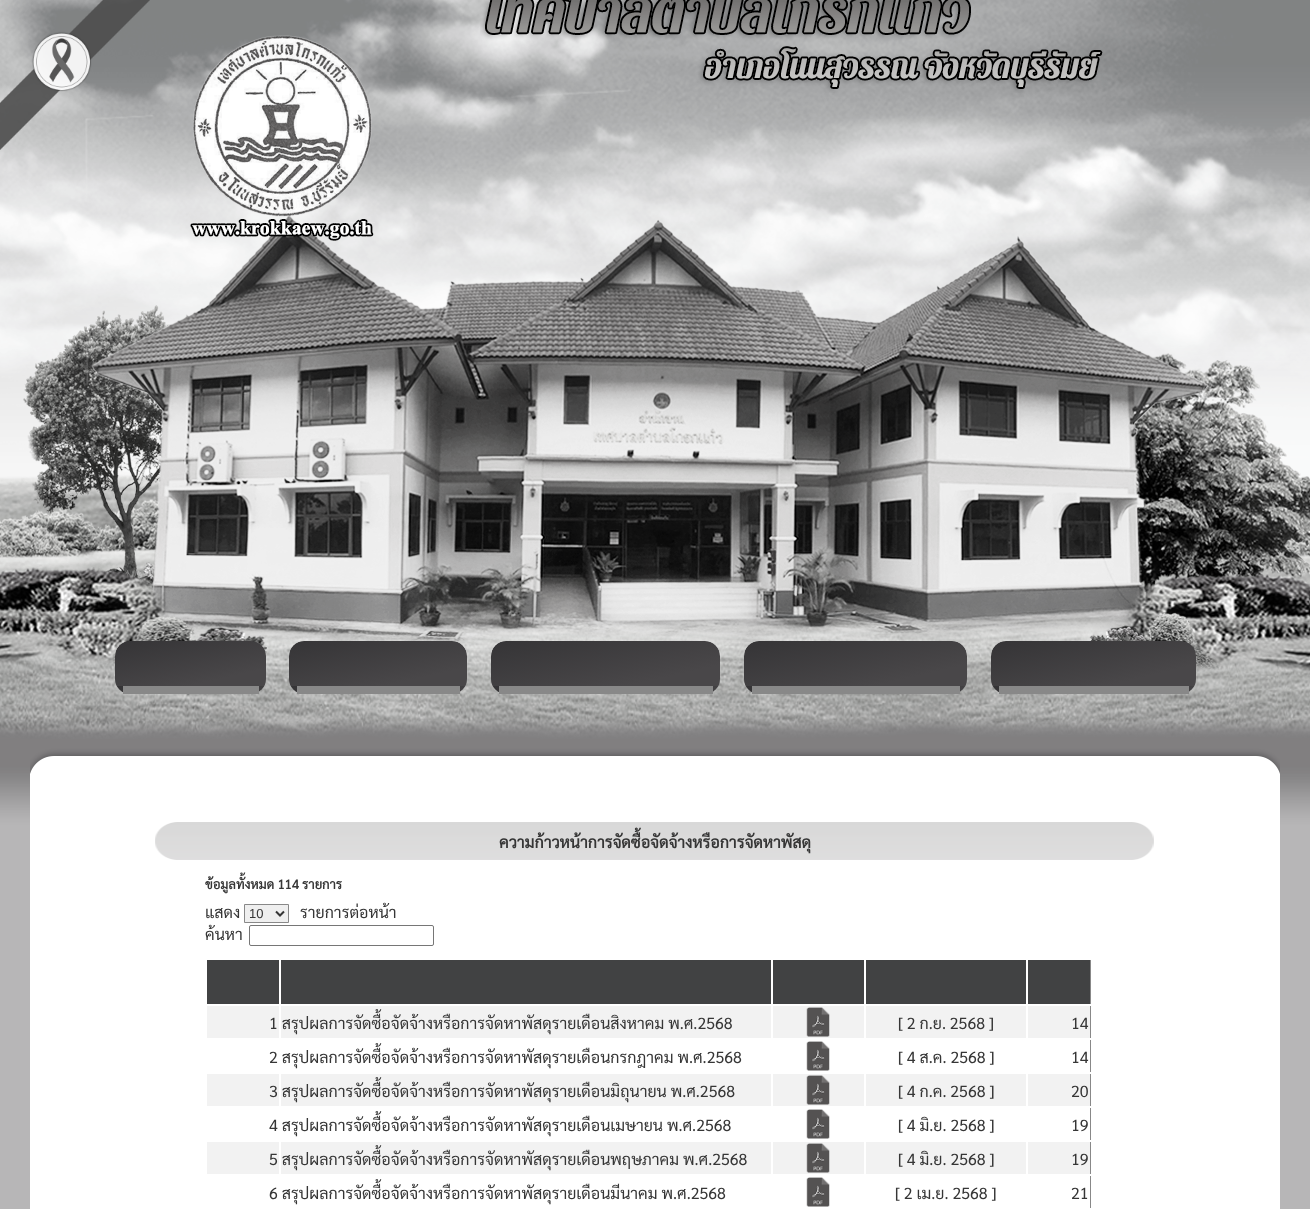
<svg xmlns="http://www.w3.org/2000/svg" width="1310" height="1209">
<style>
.a{font:bold 16px Sarabun;fill:#363636}
.b{font:bold 13px Sarabun;fill:#363636}
.c{font:16px Sarabun;fill:#363636}
.d{font:13px Liberation Sans;fill:#363636}
</style>
<defs>
<clipPath id="clip1"><rect x="115" y="641" width="151" height="53" rx="15"/></clipPath>
<linearGradient id="g1" gradientUnits="userSpaceOnUse" x1="199" y1="701" x2="182" y2="626"><stop offset="0.22" stop-color="#494749"/><stop offset="1" stop-color="#353436"/></linearGradient>
<linearGradient id="g2" gradientUnits="userSpaceOnUse" x1="199" y1="746" x2="182" y2="671"><stop offset="0.22" stop-color="#494749"/><stop offset="1" stop-color="#353436"/></linearGradient>
<clipPath id="clip2"><rect x="289" y="641" width="178" height="53" rx="15"/></clipPath>
<linearGradient id="g3" gradientUnits="userSpaceOnUse" x1="387" y1="704" x2="369" y2="623"><stop offset="0.22" stop-color="#494749"/><stop offset="1" stop-color="#353436"/></linearGradient>
<linearGradient id="g4" gradientUnits="userSpaceOnUse" x1="387" y1="749" x2="369" y2="668"><stop offset="0.22" stop-color="#494749"/><stop offset="1" stop-color="#353436"/></linearGradient>
<clipPath id="clip3"><rect x="491" y="641" width="229" height="53" rx="15"/></clipPath>
<linearGradient id="g5" gradientUnits="userSpaceOnUse" x1="616" y1="710" x2="595" y2="617"><stop offset="0.22" stop-color="#494749"/><stop offset="1" stop-color="#353436"/></linearGradient>
<linearGradient id="g6" gradientUnits="userSpaceOnUse" x1="616" y1="755" x2="595" y2="662"><stop offset="0.22" stop-color="#494749"/><stop offset="1" stop-color="#353436"/></linearGradient>
<clipPath id="clip4"><rect x="744" y="641" width="223" height="53" rx="15"/></clipPath>
<linearGradient id="g7" gradientUnits="userSpaceOnUse" x1="866" y1="709" x2="845" y2="618"><stop offset="0.22" stop-color="#494749"/><stop offset="1" stop-color="#353436"/></linearGradient>
<linearGradient id="g8" gradientUnits="userSpaceOnUse" x1="866" y1="754" x2="845" y2="663"><stop offset="0.22" stop-color="#494749"/><stop offset="1" stop-color="#353436"/></linearGradient>
<clipPath id="clip5"><rect x="991" y="641" width="205" height="53" rx="15"/></clipPath>
<linearGradient id="g9" gradientUnits="userSpaceOnUse" x1="1104" y1="707" x2="1083" y2="620"><stop offset="0.22" stop-color="#494749"/><stop offset="1" stop-color="#353436"/></linearGradient>
<linearGradient id="g10" gradientUnits="userSpaceOnUse" x1="1104" y1="752" x2="1083" y2="665"><stop offset="0.22" stop-color="#494749"/><stop offset="1" stop-color="#353436"/></linearGradient>
</defs>
<rect width="100%" height="100%" fill="#fff"/>
<image href="2.png" x="0" y="0" width="30" height="739"/>
<image href="3.png" x="30" y="0" width="1250" height="739"/>
<image href="1.png" x="0" y="0" width="150" height="150"/>
<image href="4.png" x="190" y="35" width="185" height="188"/>
<image href="5.png" x="480" y="0" width="623" height="93"/>
<g clip-path="url(#clip1)">
<path fill="url(#g1)" d="M130 641h121c8.5 0 15 6.5 15 15v30h-151v-30c0-8.5 6.5-15 15-15z"/>
<path fill="url(#g2)" d="M115 686h151v7H115z"/>
</g>
<path fill="#888" d="M123 686h136v8H123z"/>
<g clip-path="url(#clip2)">
<path fill="url(#g3)" d="M304 641h148c8.5 0 15 6.5 15 15v30h-178v-30c0-8.5 6.5-15 15-15z"/>
<path fill="url(#g4)" d="M289 686h178v7H289z"/>
</g>
<path fill="#888" d="M297 686h163v8H297z"/>
<g clip-path="url(#clip3)">
<path fill="url(#g5)" d="M506 641h199c8.5 0 15 6.5 15 15v30h-229v-30c0-8.5 6.5-15 15-15z"/>
<path fill="url(#g6)" d="M491 686h229v7H491z"/>
</g>
<path fill="#888" d="M499 686h214v8H499z"/>
<g clip-path="url(#clip4)">
<path fill="url(#g7)" d="M759 641h193c8.5 0 15 6.5 15 15v30h-223v-30c0-8.5 6.5-15 15-15z"/>
<path fill="url(#g8)" d="M744 686h223v7H744z"/>
</g>
<path fill="#888" d="M752 686h208v8H752z"/>
<g clip-path="url(#clip5)">
<path fill="url(#g9)" d="M1006 641h175c8.5 0 15 6.5 15 15v30h-205v-30c0-8.5 6.5-15 15-15z"/>
<path fill="url(#g10)" d="M991 686h205v7H991z"/>
</g>
<path fill="#888" d="M999 686h190v8H999z"/>
<image href="6.png" x="1280" y="0" width="30" height="739"/>
<image href="7.png" x="0" y="739" width="30" height="470"/>
<image href="8.png" x="30" y="739" width="1250" height="35"/>
<image href="9.png" x="155" y="822" width="999" height="38"/>
<path fill="#efefef" stroke="#888" d="M244.5 904.5h44v18H244.5z"/>
<path fill="none" stroke="#363636" stroke-width="2" d="M276 911.5l4 4l4-4"/>
<rect fill="none" stroke="#767676" x="249.5" y="925.5" width="184" height="20" rx="1.5"/>
<path fill="#414243" d="M207 960h72v44H207z"/>
<path fill="#414243" d="M281 960h490v44H281z"/>
<path fill="#414243" d="M773 960h91v44H773z"/>
<path fill="#414243" d="M866 960h160v44H866z"/>
<path fill="#414243" d="M1028 960h62v44H1028z"/>
<path fill="#888" d="M1090 960h1v44H1090z"/>
<path fill="#f2f2f2" d="M281 1006h490v32H281z"/>
<path fill="#f2f2f2" d="M773 1006h91v32H773z"/>
<image href="10.png" x="806" y="1007" width="24" height="30"/>
<path fill="#f2f2f2" d="M207 1006h72v32H207z"/>
<path fill="#f2f2f2" d="M866 1006h160v32H866z"/>
<path fill="#f2f2f2" d="M1028 1006h62v32H1028z"/>
<path fill="#888" d="M1090 1006h1v32H1090z"/>
<image href="11.png" x="806" y="1041" width="24" height="30"/>
<path fill="#888" d="M1090 1040h1v32H1090z"/>
<path fill="#f2f2f2" d="M281 1074h490v32H281z"/>
<path fill="#f2f2f2" d="M773 1074h91v32H773z"/>
<image href="12.png" x="806" y="1075" width="24" height="30"/>
<path fill="#f2f2f2" d="M207 1074h72v32H207z"/>
<path fill="#f2f2f2" d="M866 1074h160v32H866z"/>
<path fill="#f2f2f2" d="M1028 1074h62v32H1028z"/>
<path fill="#888" d="M1090 1074h1v32H1090z"/>
<image href="11.png" x="806" y="1109" width="24" height="30"/>
<path fill="#888" d="M1090 1108h1v32H1090z"/>
<path fill="#f2f2f2" d="M281 1142h490v32H281z"/>
<path fill="#f2f2f2" d="M773 1142h91v32H773z"/>
<image href="10.png" x="806" y="1143" width="24" height="30"/>
<path fill="#f2f2f2" d="M207 1142h72v32H207z"/>
<path fill="#f2f2f2" d="M866 1142h160v32H866z"/>
<path fill="#f2f2f2" d="M1028 1142h62v32H1028z"/>
<path fill="#888" d="M1090 1142h1v32H1090z"/>
<image href="11.png" x="806" y="1177" width="24" height="30"/>
<path fill="#888" d="M1090 1176h1v32H1090z"/>
<image href="13.png" x="1280" y="739" width="30" height="470"/>
<text class="a" x="499" y="848">ความก้าวหน้าการจัดซื้อจัดจ้างหรือการจัดหาพัสดุ</text>
<text class="b" x="205" y="889">ข้อมูลทั้งหมด 114 รายการ</text>
<text class="c" x="205" y="918">แสดง</text>
<text class="d" x="249" y="918">10</text>
<text class="c" x="300" y="918">รายการต่อหน้า</text>
<text class="c" x="205" y="940">ค้นหา</text>
<text class="c" x="269" y="1029">1 สรุปผลการจัดซื้อจัดจ้างหรือการจัดหาพัสดุรายเดือนสิงหาคม พ.ศ.2568</text>
<text class="c" x="898" y="1029">[ 2 ก.ย. 2568 ]</text>
<text class="c" x="1071" y="1029">14</text>
<text class="c" x="269" y="1063">2 สรุปผลการจัดซื้อจัดจ้างหรือการจัดหาพัสดุรายเดือนกรกฎาคม พ.ศ.2568</text>
<text class="c" x="898" y="1063">[ 4 ส.ค. 2568 ]</text>
<text class="c" x="1071" y="1063">14</text>
<text class="c" x="269" y="1097">3 สรุปผลการจัดซื้อจัดจ้างหรือการจัดหาพัสดุรายเดือนมิถุนายน พ.ศ.2568</text>
<text class="c" x="898" y="1097">[ 4 ก.ค. 2568 ]</text>
<text class="c" x="1071" y="1097">20</text>
<text class="c" x="269" y="1131">4 สรุปผลการจัดซื้อจัดจ้างหรือการจัดหาพัสดุรายเดือนเมษายน พ.ศ.2568</text>
<text class="c" x="898" y="1131">[ 4 มิ.ย. 2568 ]</text>
<text class="c" x="1071" y="1131">19</text>
<text class="c" x="269" y="1165">5 สรุปผลการจัดซื้อจัดจ้างหรือการจัดหาพัสดุรายเดือนพฤษภาคม พ.ศ.2568</text>
<text class="c" x="898" y="1165">[ 4 มิ.ย. 2568 ]</text>
<text class="c" x="1071" y="1165">19</text>
<text class="c" x="269" y="1199">6 สรุปผลการจัดซื้อจัดจ้างหรือการจัดหาพัสดุรายเดือนมีนาคม พ.ศ.2568</text>
<text class="c" x="895" y="1199">[ 2 เม.ย. 2568 ]</text>
<text class="c" x="1071" y="1199">21</text>
</svg>
